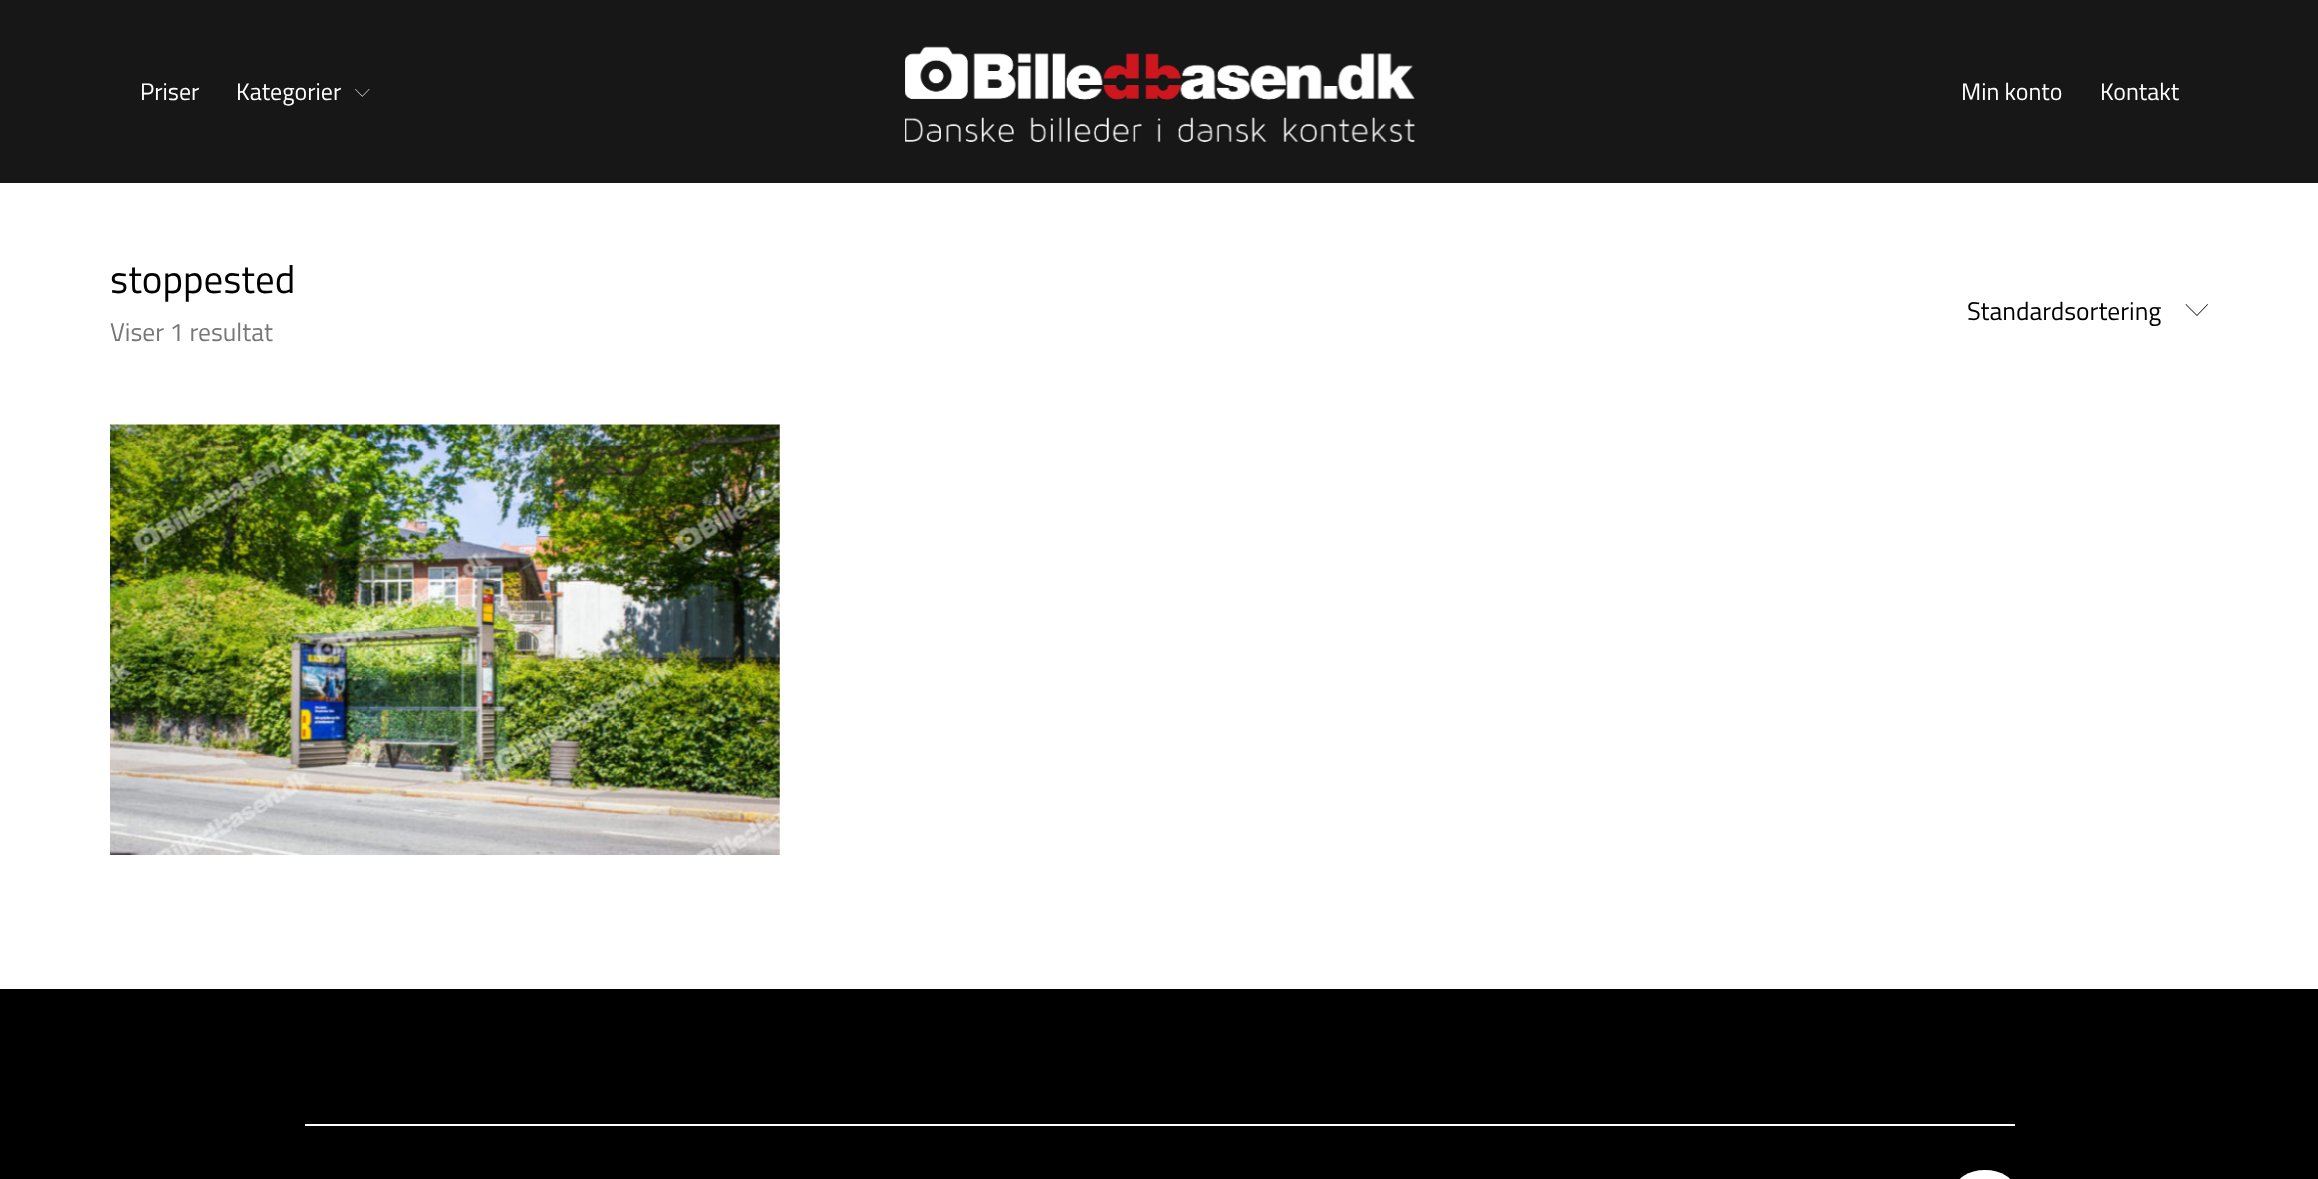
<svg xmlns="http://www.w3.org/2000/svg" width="2318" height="1179">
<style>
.a{font:24px Titillium Web;fill:#fff}
.b{font:39px Titillium Web;fill:#000}
.c{font:25.5px Titillium Web;fill:#777}
.d{font:25.5px Titillium Web;fill:#000}
</style>
<rect width="100%" height="100%" fill="#fff"/>
<path fill="#171717" d="M0 0h2318v183H0z"/>
<image href="1.png" x="355" y="89" width="15" height="8"/>
<image href="2.png" x="905" y="46" width="510" height="96"/>
<path fill="#000" d="M2197 316l-11.5-11.5l.5-.5l11 11l10.5-11l.5 .5z"/>
<image href="3.png" x="110" y="424" width="670" height="431"/>
<path fill="#000" d="M0 989h2318v190H0z"/>
<path fill="#fff" d="M305 1124h1710v2H305z"/>
<rect fill="#fff" x="1955" y="1170" width="60" height="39" rx="30"/>
<text class="a" x="140" y="100">Priser</text>
<text class="a" x="236" y="100">Kategorier</text>
<text class="a" x="1961" y="100">Min konto</text>
<text class="a" x="2100" y="100">Kontakt</text>
<text class="b" x="110" y="293">stoppested</text>
<text class="c" x="110" y="341">Viser 1 resultat</text>
<text class="d" x="1967" y="320">Standardsortering</text>
</svg>
